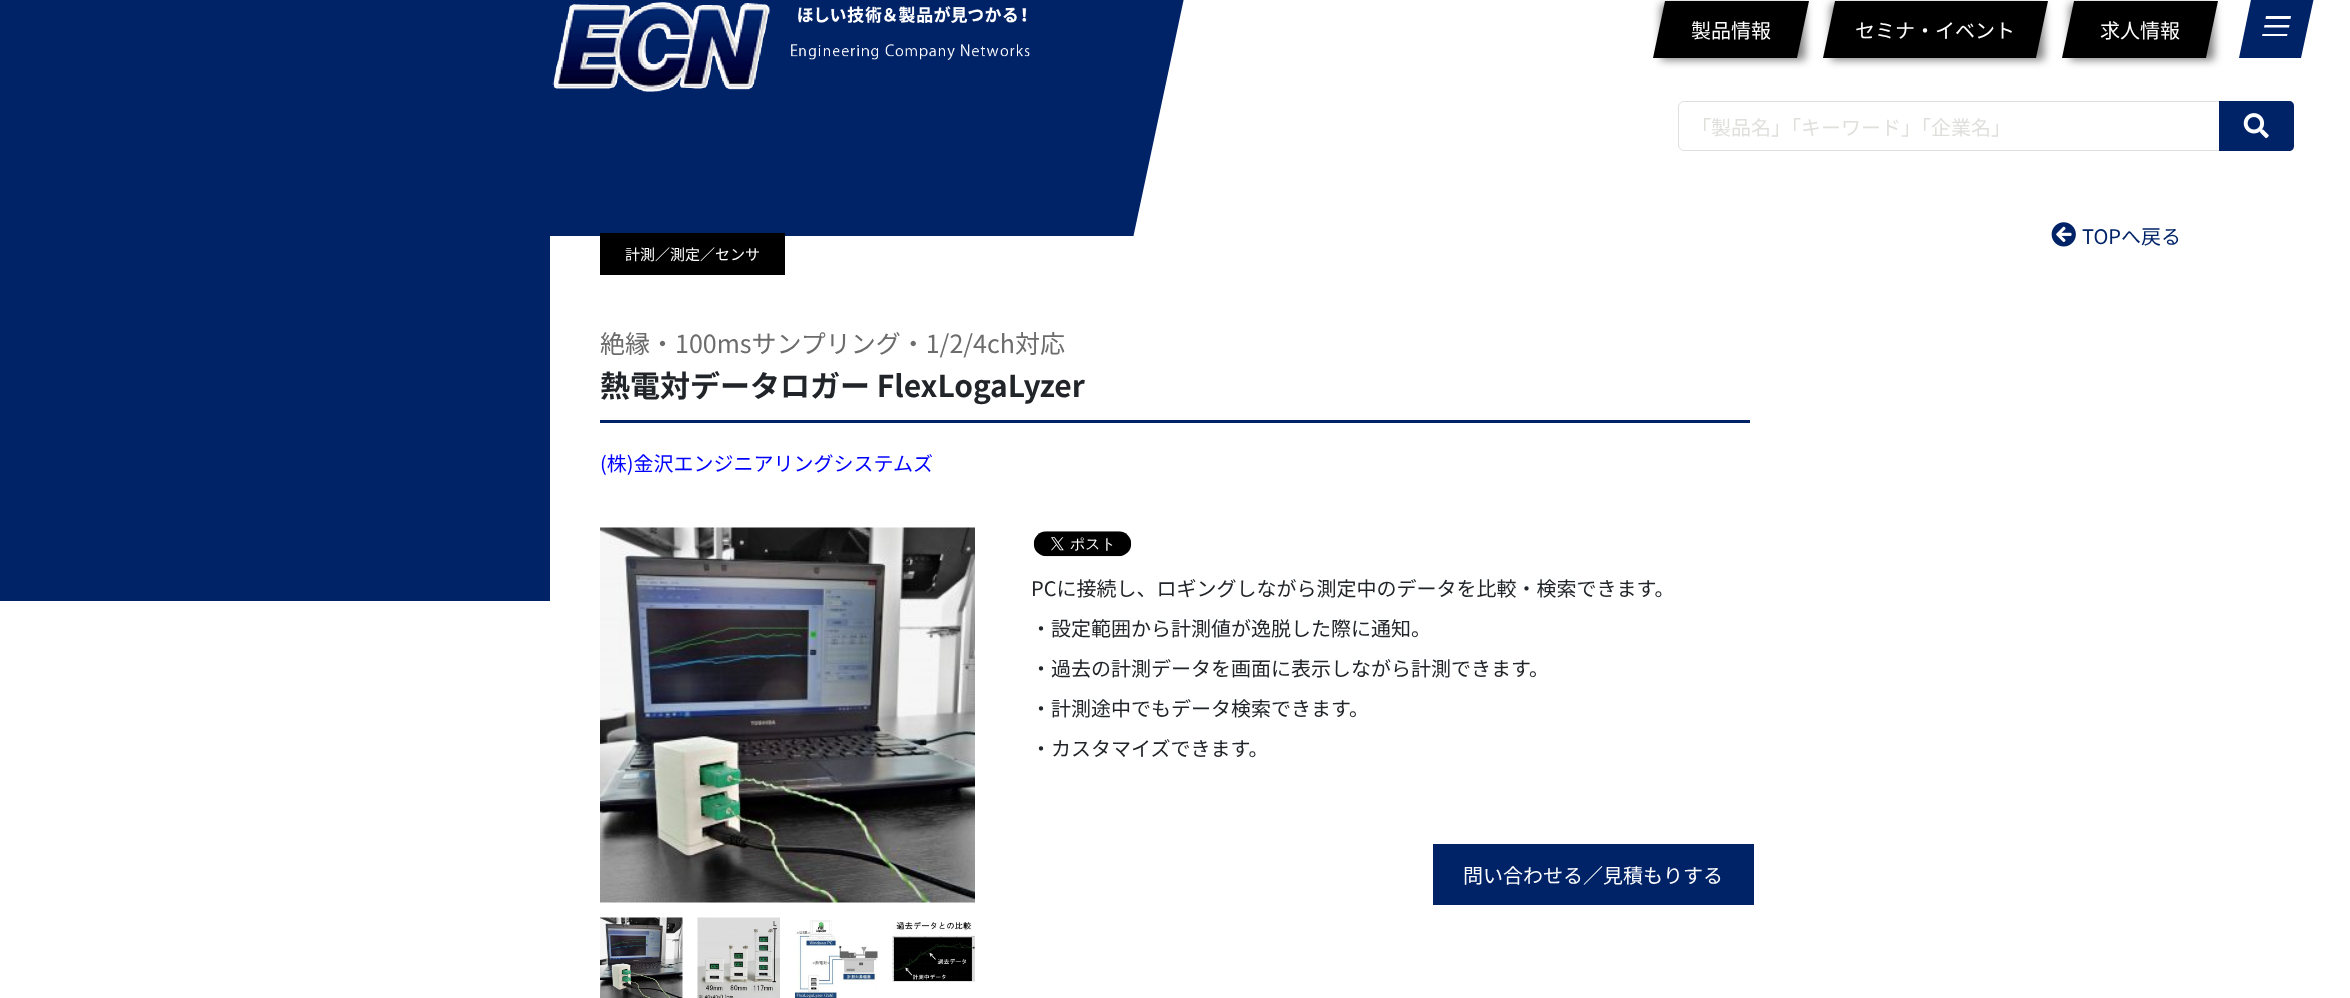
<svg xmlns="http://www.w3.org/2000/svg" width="2350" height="998">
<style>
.a{font:20px Noto Sans JP;fill:#fff}
.b{font:20px Noto Sans JP;fill:#dfdfdc}
.c{font:20px Noto Sans JP;fill:#002368}
.d{font:15px Noto Sans JP;fill:#fff}
.e{font:25px Noto Sans JP;fill:#6c6c6c}
.f{font:bold 30px Noto Sans JP;fill:#212529}
.g{font:20px Noto Sans JP;fill:#00f}
.h{font:20px Noto Sans JP;fill:#212529}
</style>
<rect width="100%" height="100%" fill="#fff"/>
<path fill="#002368" d="M0 0h59v276H0z"/>
<path fill="#002368" d="M69-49h1125l-138 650h-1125z"/>
<image href="1.png" x="552" y="2" width="478" height="90"/>
<path fill="#00000080" filter="blur(4.5px)" d="M1661 4h144v56H1661z"/>
<path fill="#000" d="M1665 1h144l-12 57h-144z"/>
<path fill="#00000080" filter="blur(4.5px)" d="M1831 4h213v56H1831z"/>
<path fill="#000" d="M1835 1h213l-12 57h-213z"/>
<path fill="#00000080" filter="blur(4.5px)" d="M2070 4h144v56H2070z"/>
<path fill="#000" d="M2074 1h144l-12 57h-144z"/>
<path fill="#002368" d="M2261-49h63l-23 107h-62z"/>
<path fill="#fff" d="M2264.5 25h25l-.5 2.5h-25zm1.5-9h25l-.5 3h-25zm-3.5 18h25l-.5 2h-25z"/>
<rect fill="none" stroke="#dfdfdc" x="1678.5" y="101.5" width="584" height="49" rx="5.5"/>
<path fill="#002368" d="M2219 101h70c3 0 5 2 5 5v40c0 3-2 5-5 5h-70z"/>
<image href="2.png" x="2243" y="113" width="26" height="26"/>
<image href="3.png" x="2051" y="222" width="25" height="25"/>
<path fill="#fff" d="M550 236h584v365H550z"/>
<path fill="#000" d="M600 233h185v42H600z"/>
<path fill="#002368" d="M600 420h1150v3H600z"/>
<image href="4.png" x="600" y="527" width="375" height="376"/>
<image href="5.png" x="600" y="917" width="83" height="81"/>
<image href="6.png" x="697" y="917" width="83" height="81"/>
<image href="7.png" x="795" y="920" width="83" height="78"/>
<image href="8.png" x="892" y="922" width="83" height="60"/>
<image href="9.png" x="1033" y="531" width="99" height="26"/>
<path fill="#002368" d="M1433 844h321v61H1433z"/>
<text class="a" x="1691" y="38">製品情報</text>
<text class="a" x="1855" y="38">セミナ・イベント</text>
<text class="a" x="2100" y="38">求人情報</text>
<text class="b" x="1691" y="135">「製品名」「キーワード」「企業名」</text>
<text class="c" x="2082" y="244">TOPへ戻る</text>
<text class="d" x="625" y="260">計測／測定／センサ</text>
<text class="e" x="600" y="353">絶縁・100msサンプリング・1/2/4ch対応</text>
<text class="f" x="600" y="397">熱電対データロガー FlexLogaLyzer</text>
<text class="g" x="600" y="471">(株)金沢エンジニアリングシステムズ</text>
<text class="h" x="1031" y="596">PCに接続し、ロギングしながら測定中のデータを比較・検索できます。</text>
<text class="h" x="1031" y="636">・設定範囲から計測値が逸脱した際に通知。</text>
<text class="h" x="1031" y="676">・過去の計測データを画面に表示しながら計測できます。</text>
<text class="h" x="1031" y="716">・計測途中でもデータ検索できます。</text>
<text class="h" x="1031" y="756">・カスタマイズできます。</text>
<text class="a" x="1463" y="883">問い合わせる／見積もりする</text>
</svg>
